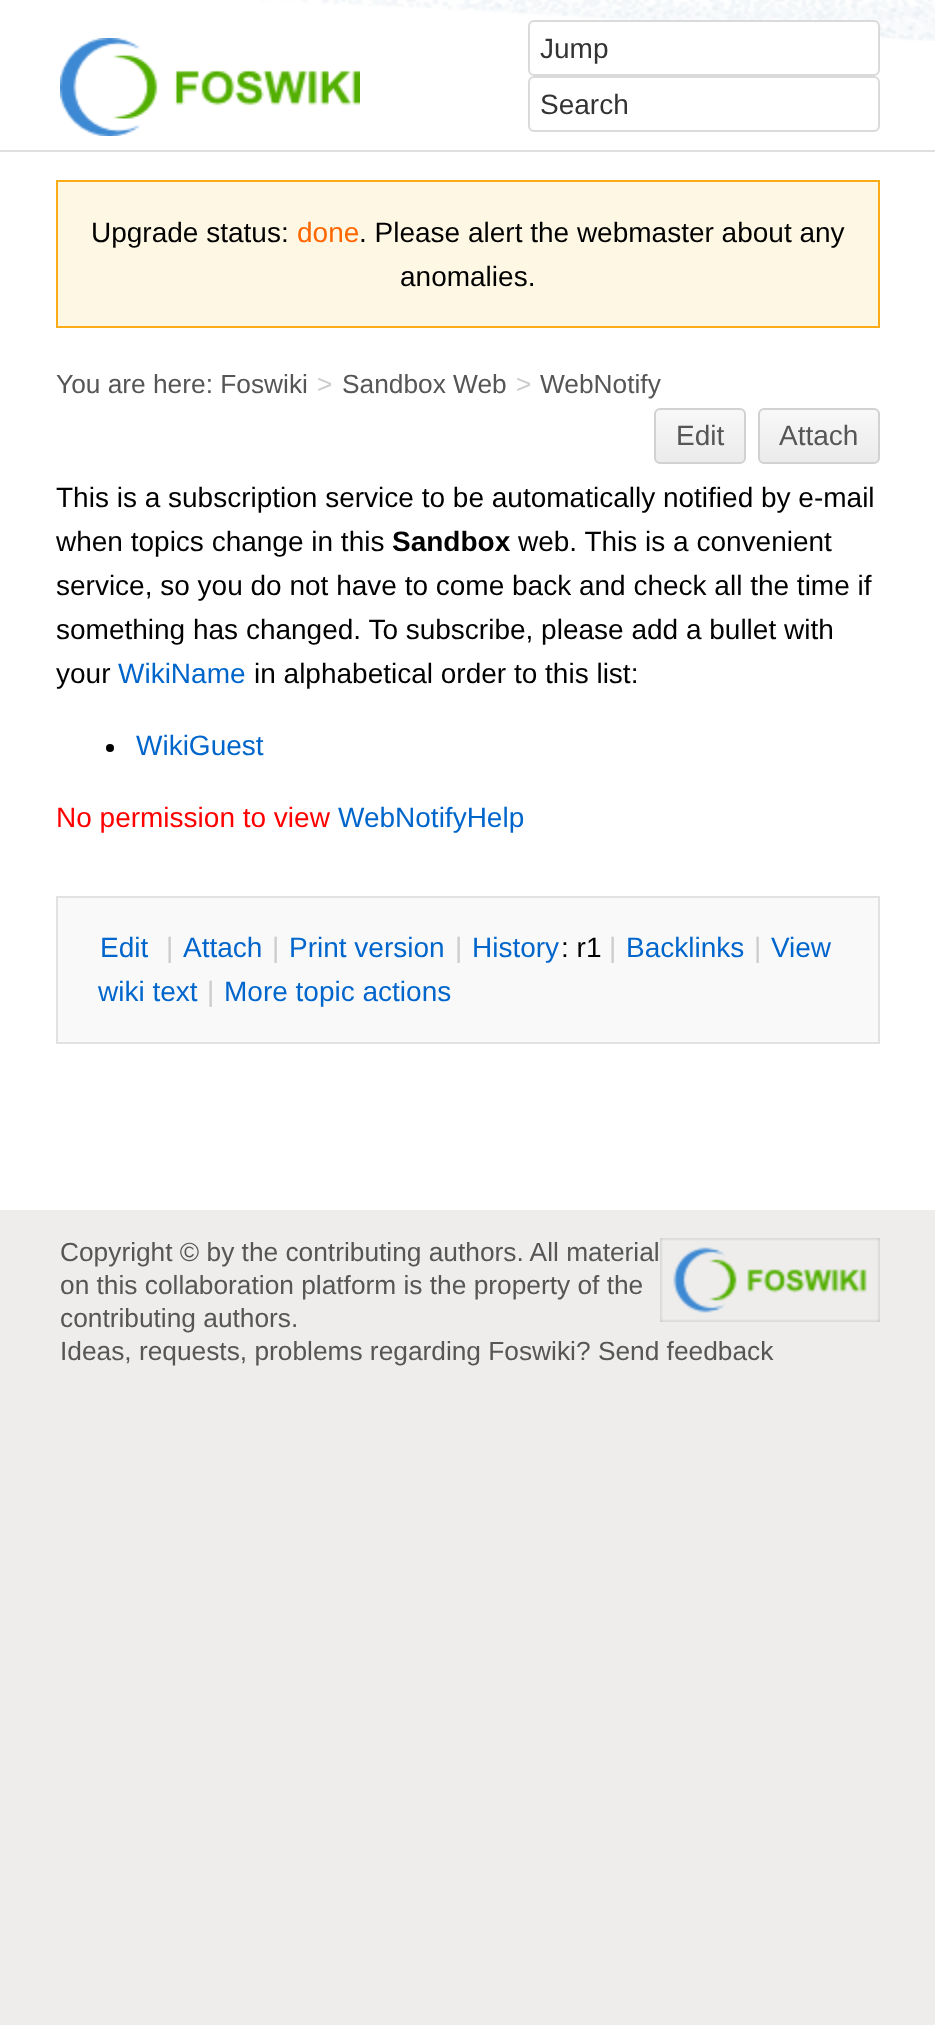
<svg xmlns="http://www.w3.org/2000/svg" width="935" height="2025">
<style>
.a{font:28px Liberation Sans;fill:#333}
.b{font:28px Liberation Sans;fill:#000}
.c{font:28px Liberation Sans;fill:#f60}
.d{font:26.3px Liberation Sans;fill:#565656}
.e{font:26.3px Liberation Sans;fill:#ccc}
.f{font:28px Liberation Sans;fill:#565656}
.g{font:bold 28px Liberation Sans;fill:#000}
.h{font:28px Liberation Sans;fill:#06c}
.i{font:28px Liberation Sans;fill:#f00}
.j{font:28px Liberation Sans;fill:#ccc}
</style>
<defs>
<clipPath id="clip1"><rect x="654" y="408" width="92" height="56" rx="6"/></clipPath>
<linearGradient id="g1" gradientUnits="userSpaceOnUse" x1="700" y1="410" x2="700" y2="462"><stop offset="0" stop-color="#f8f8f8"/><stop offset="1" stop-color="#ebebeb"/></linearGradient>
<clipPath id="clip2"><rect x="758" y="408" width="122" height="56" rx="6"/></clipPath>
<linearGradient id="g2" gradientUnits="userSpaceOnUse" x1="819" y1="410" x2="819" y2="462"><stop offset="0" stop-color="#f8f8f8"/><stop offset="1" stop-color="#ebebeb"/></linearGradient>
</defs>
<rect width="100%" height="100%" fill="#eeedec"/>
<path fill="#dfdfdf" d="M0 150h935v2H0z"/>
<path fill="#fff" d="M0 0h935v150H0z"/>
<image href="1.png" x="260" y="0" width="675" height="41"/>
<image href="2.png" x="60" y="38" width="300" height="98"/>
<rect fill="#fff" stroke="#dadada" stroke-width="2" x="529" y="21" width="350" height="54" rx="5"/>
<rect fill="none" stroke="#dadada" stroke-width="2" x="529" y="77" width="350" height="54" rx="5"/>
<path fill="#fff" d="M0 152h935v1058H0z"/>
<path fill="#fef7e3" stroke="#fbad17" stroke-width="2" d="M57 181h822v146H57z"/>
<g clip-path="url(#clip1)">
<path fill="url(#g1)" d="M654 410h92v52H654z"/>
</g>
<rect fill="none" stroke="#d2d2d2" stroke-width="2" x="655" y="409" width="90" height="54" rx="5"/>
<g clip-path="url(#clip2)">
<path fill="url(#g2)" d="M758 410h122v52H758z"/>
</g>
<rect fill="none" stroke="#d2d2d2" stroke-width="2" x="759" y="409" width="120" height="54" rx="5"/>
<circle fill="#000" cx="110" cy="748" r="4"/>
<path fill="#f9f9fa" stroke="#e2e2e2" stroke-width="2" d="M57 897h822v146H57z"/>
<image href="3.png" x="660" y="1238" width="220" height="84"/>
<text class="a" x="540" y="58">Jump</text>
<text class="a" x="540" y="114">Search</text>
<text class="b" x="91" y="242">Upgrade status:</text>
<text class="c" x="297" y="242">done</text>
<text class="b" x="359" y="242">. Please alert the webmaster about any</text>
<text class="b" x="400" y="286">anomalies.</text>
<text class="d" x="56" y="393">You are here: Foswiki</text>
<text class="e" x="317" y="393">&gt;</text>
<text class="d" x="342" y="393">Sandbox Web</text>
<text class="e" x="516" y="393">&gt;</text>
<text class="d" x="540" y="393">WebNotify</text>
<text class="f" x="676" y="445">Edit</text>
<text class="f" x="779" y="445">Attach</text>
<text class="b" x="56" y="507">This is a subscription service to be automatically notified by e-mail</text>
<text class="b" x="56" y="551">when topics change in this</text>
<text class="g" x="392" y="551">Sandbox</text>
<text class="b" x="518" y="551">web. This is a convenient</text>
<text class="b" x="56" y="595">service, so you do not have to come back and check all the time if</text>
<text class="b" x="56" y="639">something has changed. To subscribe, please add a bullet with</text>
<text class="b" x="56" y="683">your</text>
<text class="h" x="118" y="683">WikiName</text>
<text class="b" x="254" y="683">in alphabetical order to this list:</text>
<text class="h" x="136" y="755">WikiGuest</text>
<text class="i" x="56" y="827">No permission to view</text>
<text class="h" x="338" y="827">WebNotifyHelp</text>
<text class="h" x="100" y="957">Edit</text>
<text class="j" x="166" y="957">|</text>
<text class="h" x="183" y="957">Attach</text>
<text class="j" x="272" y="957">|</text>
<text class="h" x="289" y="957">Print version</text>
<text class="j" x="455" y="957">|</text>
<text class="h" x="472" y="957">History</text>
<text class="b" x="561" y="957">: r1</text>
<text class="j" x="609" y="957">|</text>
<text class="h" x="626" y="957">Backlinks</text>
<text class="j" x="754" y="957">|</text>
<text class="h" x="771" y="957">V</text>
<text class="h" x="789" y="957">iew</text>
<text class="h" x="98" y="1001">wiki text</text>
<text class="j" x="207" y="1001">|</text>
<text class="h" x="224" y="1001">More topic actions</text>
<text class="d" x="60" y="1261">Copyright © by the contributing authors. All material</text>
<text class="d" x="60" y="1294">on this collaboration platform is the property of the</text>
<text class="d" x="60" y="1327">contributing authors.</text>
<text class="d" x="60" y="1360">Ideas, requests, problems regarding Foswiki? Send feedback</text>
</svg>
